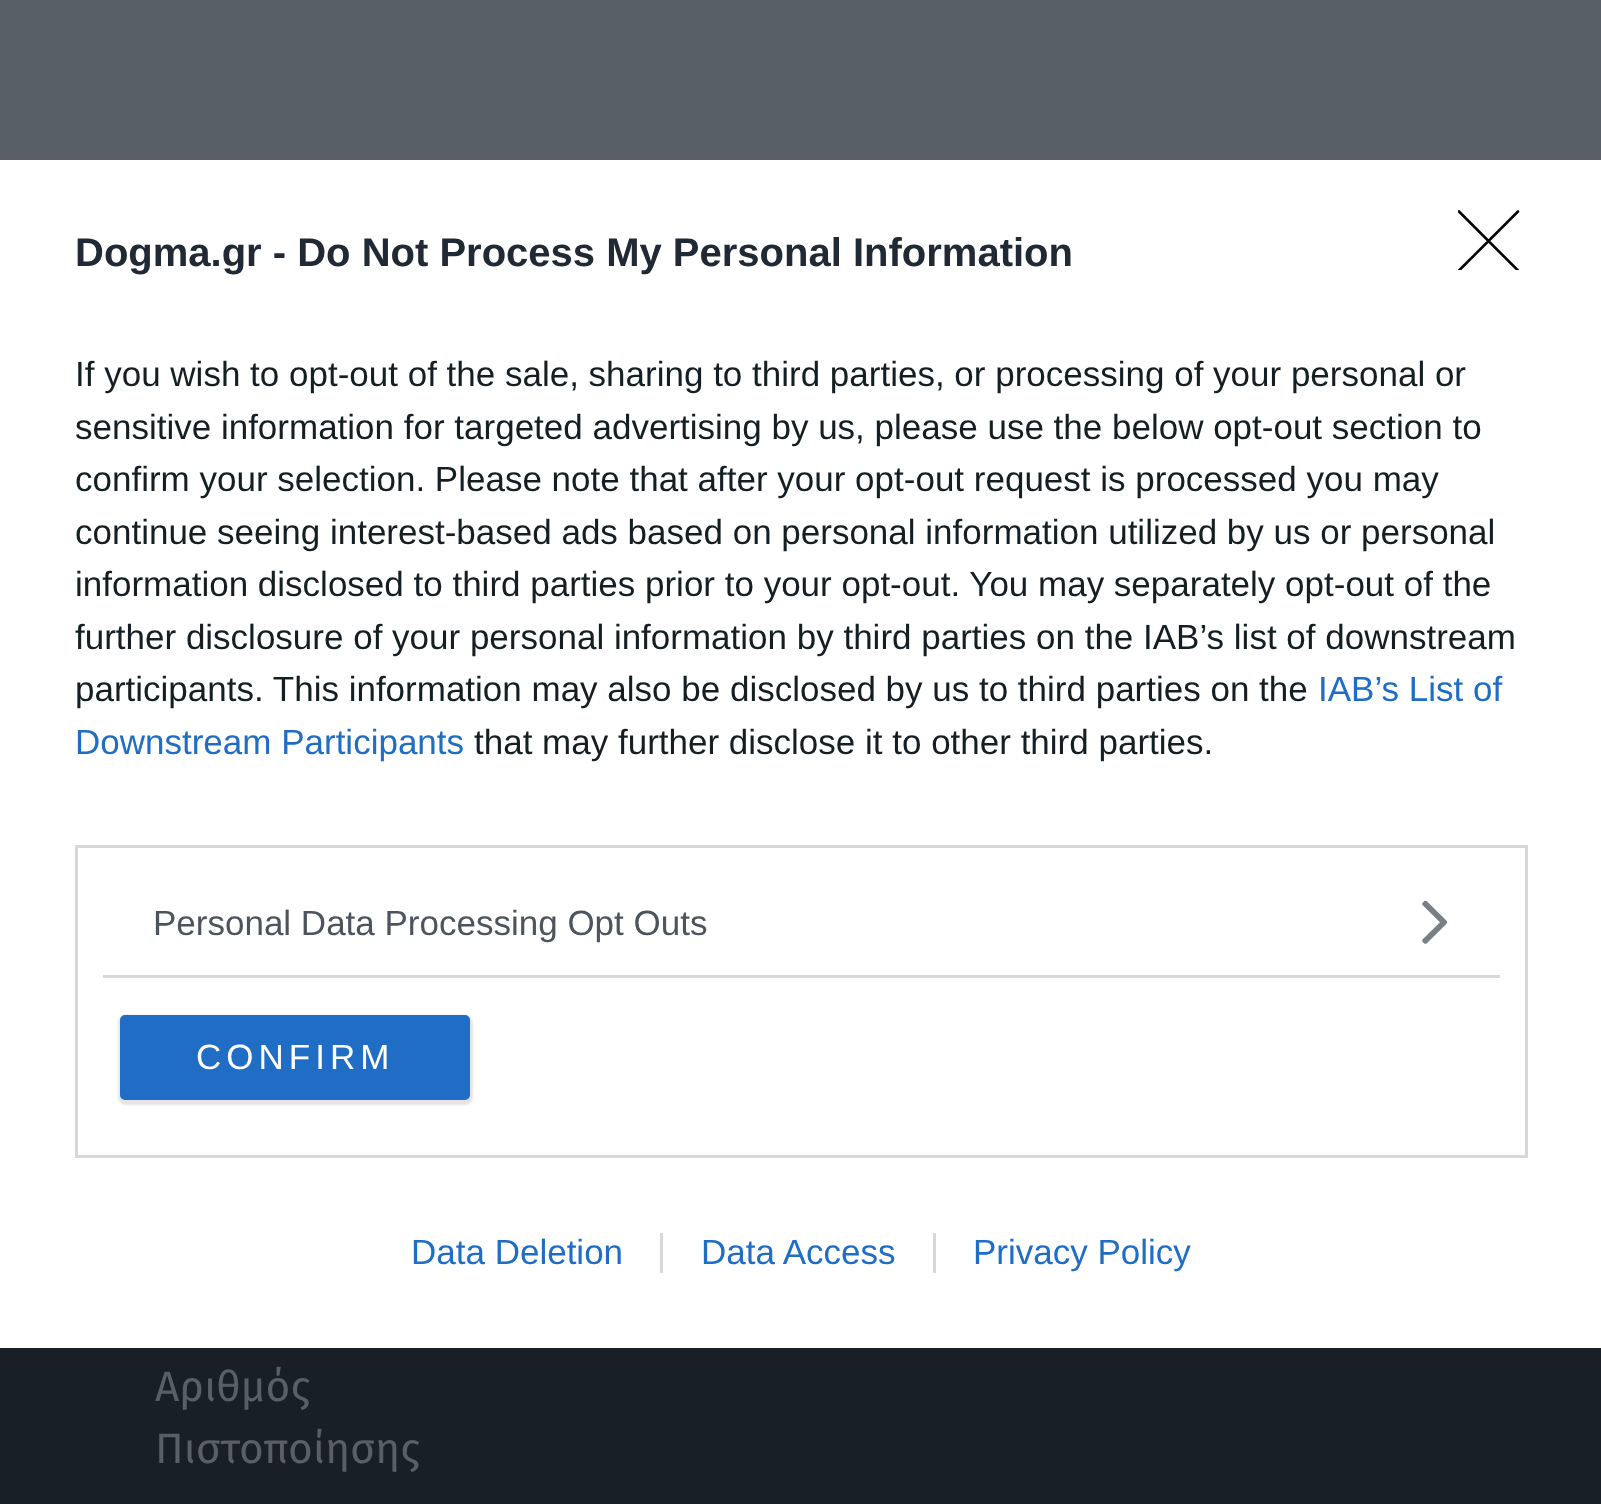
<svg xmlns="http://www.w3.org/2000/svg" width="1601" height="1504">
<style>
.a{font:bold 40px Liberation Sans;fill:#212934}
.b{font:35px Liberation Sans;fill:#141e23}
.c{font:35px Liberation Sans;fill:#206dc5}
.d{font:35px Liberation Sans;fill:#4d545d}
.e{font:35px Liberation Sans;letter-spacing:5px;fill:#fff}
.f{font:42.5px Fira Sans;fill:#595f67}
</style>
<defs>
<clipPath id="clip1"><path d="M1458 210h62v60H1458z"/></clipPath>
</defs>
<rect width="100%" height="100%" fill="#595f67"/>
<path fill="#fff" d="M0 160h1601v1188H0z"/>
<g clip-path="url(#clip1)">
<path fill="none" stroke="#000" stroke-width="2.6" stroke-linecap="round" stroke-linejoin="round" d="M1459 211.5l59 59m0-59l-59 59"/>
</g>
<path fill="none" stroke="#d8d8d8" stroke-width="3" d="M76.5 846.5h1450v310H76.5z"/>
<path fill="#d8d8d8" d="M103 975h1397v3H103z"/>
<image href="1.png" x="1422" y="900" width="26" height="44"/>
<rect fill="#0000001a" filter="blur(1px)" x="118" y="1015" width="355" height="90" rx="8"/>
<rect fill="#206dc5" x="120" y="1015" width="350" height="85" rx="5"/>
<path fill="#d8d8d8" d="M660 1233h3v40H660z"/>
<path fill="#d8d8d8" d="M933 1233h3v40H933z"/>
<path fill="#191f27" d="M0 1348h1601v156H0z"/>
<text class="a" x="75" y="266">Dogma.gr - Do Not Process My Personal Information</text>
<text class="b" x="75" y="386">If you wish to opt-out of the sale, sharing to third parties, or processing of your personal or</text>
<text class="b" x="75" y="439">sensitive information for targeted advertising by us, please use the below opt-out section to</text>
<text class="b" x="75" y="491">confirm your selection. Please note that after your opt-out request is processed you may</text>
<text class="b" x="75" y="544">continue seeing interest-based ads based on personal information utilized by us or personal</text>
<text class="b" x="75" y="596">information disclosed to third parties prior to your opt-out. You may separately opt-out of the</text>
<text class="b" x="75" y="649">further disclosure of your personal information by third parties on the IAB’s list of downstream</text>
<text class="b" x="75" y="701">participants. This information may also be disclosed by us to third parties on the</text>
<text class="c" x="1318" y="701">IAB’s List of</text>
<text class="c" x="75" y="754">Downstream Participants</text>
<text class="b" x="474" y="754">that may further disclose it to other third parties.</text>
<text class="d" x="153" y="935">Personal Data Processing Opt Outs</text>
<text class="e" x="196" y="1069">CONFIRM</text>
<text class="c" x="411" y="1264">Data Deletion</text>
<text class="c" x="701" y="1264">Data Access</text>
<text class="c" x="973" y="1264">Privacy Policy</text>
<text class="f" x="155" y="1401">Αριθμός</text>
<text class="f" x="155" y="1463">Πιστοποίησης</text>
</svg>
